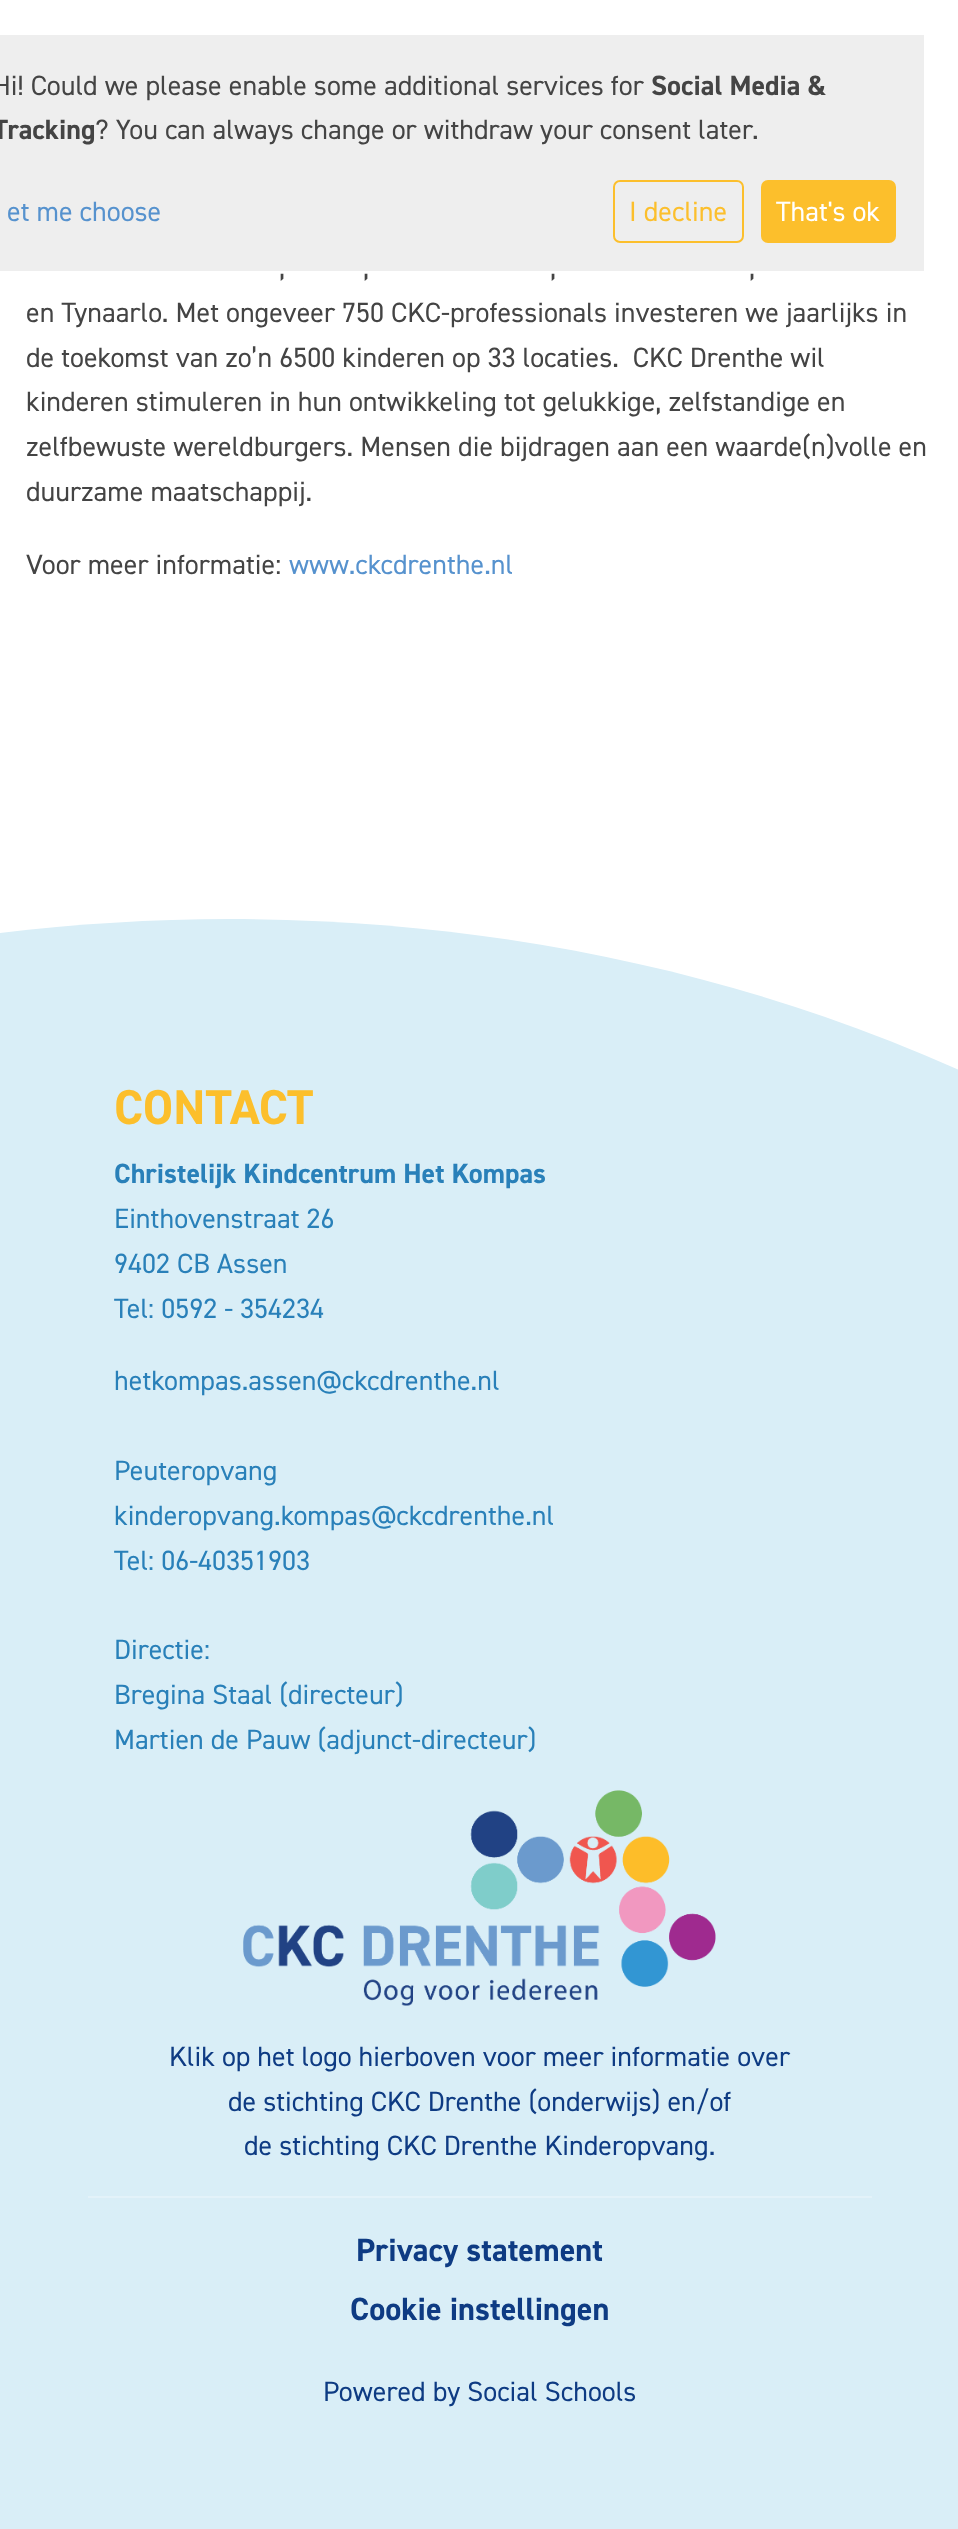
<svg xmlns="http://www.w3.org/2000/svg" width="958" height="2529">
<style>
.a{font:28px 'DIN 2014';fill:#444}
.b{font:bold 28px 'DIN 2014';fill:#444}
.c{font:28px 'DIN 2014';fill:#5692ce}
.d{font:28px 'DIN 2014';fill:#fcbf2c}
.e{font:28px 'DIN 2014';fill:#fff}
.f{font:bold 49px 'DIN 2014';fill:#fcbf2c}
.g{font:bold 28px 'DIN 2014';fill:#2980b9}
.h{font:28px 'DIN 2014';fill:#2980b9}
.i{font:28px 'DIN 2014';fill:#0e3b83}
.j{font:bold 32.25px 'DIN 2014';fill:#0e3b83}
</style>
<rect width="100%" height="100%" fill="#fff"/>
<path fill="#eee" d="M0 35h924v236H0z"/>
<rect fill="none" stroke="#fcbf2c" stroke-width="2" x="614" y="181" width="129" height="61" rx="6"/>
<rect fill="#fcbf2c" x="761" y="180" width="135" height="63" rx="7"/>
<path fill="#d9eef7" d="M230 919c266 0 515 55 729 151v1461h-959v-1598c75-9 152-14 230-14z"/>
<image href="1.png" x="243" y="1790" width="473" height="216"/>
<path fill="#e3f2f9" d="M88 2196h784v2H88z"/>
<text class="a" x="-7" y="95">Hi! Could we please enable some additional services for</text>
<text class="b" x="651" y="95">Social Media &amp;</text>
<text class="b" x="-7" y="139">Tracking</text>
<text class="a" x="95" y="139">? You can always change or withdraw your consent later.</text>
<text class="c" x="7" y="221">et me choose</text>
<text class="d" x="629" y="221">I decline</text>
<text class="e" x="776" y="221">That's ok</text>
<text class="a" x="279" y="277">,</text>
<text class="a" x="363" y="277">,</text>
<text class="a" x="550" y="277">,</text>
<text class="a" x="749" y="277">,</text>
<text class="a" x="26" y="322">en Tynaarlo. Met ongeveer 750 CKC-professionals investeren we jaarlijks in</text>
<text class="a" xml:space="preserve" x="26" y="367">de toekomst van zo’n 6500 kinderen op 33 locaties.  CKC Drenthe wil</text>
<text class="a" x="26" y="411">kinderen stimuleren in hun ontwikkeling tot gelukkige, zelfstandige en</text>
<text class="a" x="26" y="456">zelfbewuste wereldburgers. Mensen die bijdragen aan een waarde(n)volle en</text>
<text class="a" x="26" y="501">duurzame maatschappij.</text>
<text class="a" x="26" y="574">Voor meer informatie:</text>
<text class="c" x="289" y="574">www.ckcdrenthe.nl</text>
<text class="f" x="114" y="1124">CONTACT</text>
<text class="g" x="114" y="1183">Christelijk Kindcentrum Het Kompas</text>
<text class="h" x="114" y="1228">Einthovenstraat 26</text>
<text class="h" x="114" y="1273">9402 CB Assen</text>
<text class="h" x="114" y="1318">Tel: 0592 - 354234</text>
<text class="h" x="114" y="1390">hetkompas.assen@ckcdrenthe.nl</text>
<text class="h" x="114" y="1480">Peuteropvang</text>
<text class="h" x="114" y="1525">kinderopvang.kompas@ckcdrenthe.nl</text>
<text class="h" x="114" y="1570">Tel: 06-40351903</text>
<text class="h" x="114" y="1659">Directie:</text>
<text class="h" x="114" y="1704">Bregina Staal (directeur)</text>
<text class="h" x="114" y="1749">Martien de Pauw (adjunct-directeur)</text>
<text class="i" x="169" y="2066">Klik op het logo hierboven voor meer informatie over</text>
<text class="i" x="228" y="2111">de stichting CKC Drenthe (onderwijs) en/of</text>
<text class="i" x="244" y="2155">de stichting CKC Drenthe Kinderopvang.</text>
<text class="j" x="356" y="2261">Privacy statement</text>
<text class="j" x="350" y="2320">Cookie instellingen</text>
<text class="i" x="323" y="2401">Powered by Social Schools</text>
</svg>
